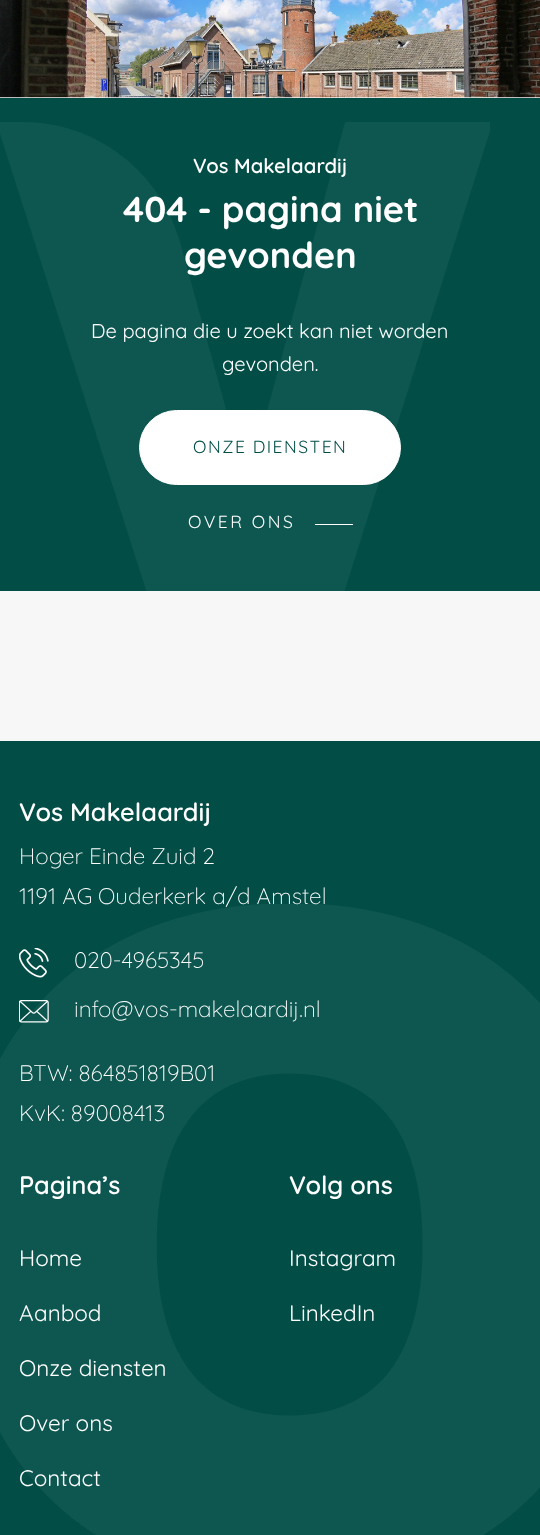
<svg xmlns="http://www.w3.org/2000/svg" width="540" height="1535">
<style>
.a{font:600 20.25px Quicksand;fill:#fff}
.b{font:bold 36px Quicksand;fill:#fff}
.c{font:20.1px Quicksand;fill:#fff}
.d{font:17.5px Quicksand;letter-spacing:1.5px;fill:#024e47}
.e{font:17.5px Quicksand;letter-spacing:2.5px;fill:#fff}
.f{font:600 25.25px Quicksand;fill:#fff}
.g{font:300 22.5px Quicksand;fill:#fff}
.h{font:22.5px Quicksand;fill:#fff}
</style>
<rect width="100%" height="100%" fill="#f7f7f7"/>
<image href="1.png" x="0" y="0" width="540" height="98"/>
<path fill="#024e47" d="M0 98h540v493H0z"/>
<rect fill="#fff" stroke="#fff" x="139.5" y="410.5" width="261" height="74" rx="37"/>
<path fill="#fff" d="M315 524h38v1H315z"/>
<path fill="#ffffff0d" d="M-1 131v-9h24c73 0 137 49 157 120l65 236h4l96-356h145v9l-153 484h-183z"/>
<path fill="#024e47" d="M0 741h540v794H0z"/>
<image href="4.png" x="0" y="904" width="540" height="631"/>
<image href="2.png" x="19" y="948" width="30" height="30"/>
<image href="3.png" x="19" y="1000" width="30" height="23"/>
<text class="a" x="193" y="173">Vos Makelaardij</text>
<text class="b" x="123" y="222">404 - pagina niet</text>
<text class="b" x="184" y="268">gevonden</text>
<text class="c" x="91" y="338">De pagina die u zoekt kan niet worden</text>
<text class="c" x="222" y="371">gevonden.</text>
<text class="d" x="193" y="453">ONZE DIENSTEN</text>
<text class="e" x="188" y="528">OVER ONS</text>
<text class="f" x="19" y="821">Vos Makelaardij</text>
<text class="g" x="19" y="864">Hoger Einde Zuid 2</text>
<text class="g" x="19" y="904">1191 AG</text>
<text class="g" x="98" y="904">Ouderkerk a/d Amstel</text>
<text class="g" x="74" y="968">020-4965345</text>
<text class="g" x="74" y="1017">info@vos-makelaardij.nl</text>
<text class="g" x="19" y="1081">BTW: 864851819B01</text>
<text class="g" x="19" y="1121">KvK: 89008413</text>
<text class="f" x="19" y="1194">Pagina’s</text>
<text class="h" x="19" y="1266">Home</text>
<text class="h" x="19" y="1321">Aanbod</text>
<text class="h" x="19" y="1376">Onze diensten</text>
<text class="h" x="19" y="1431">Over ons</text>
<text class="h" x="19" y="1486">Contact</text>
<text class="f" x="289" y="1194">Volg ons</text>
<text class="h" x="289" y="1266">Instagram</text>
<text class="h" x="289" y="1321">LinkedIn</text>
</svg>
